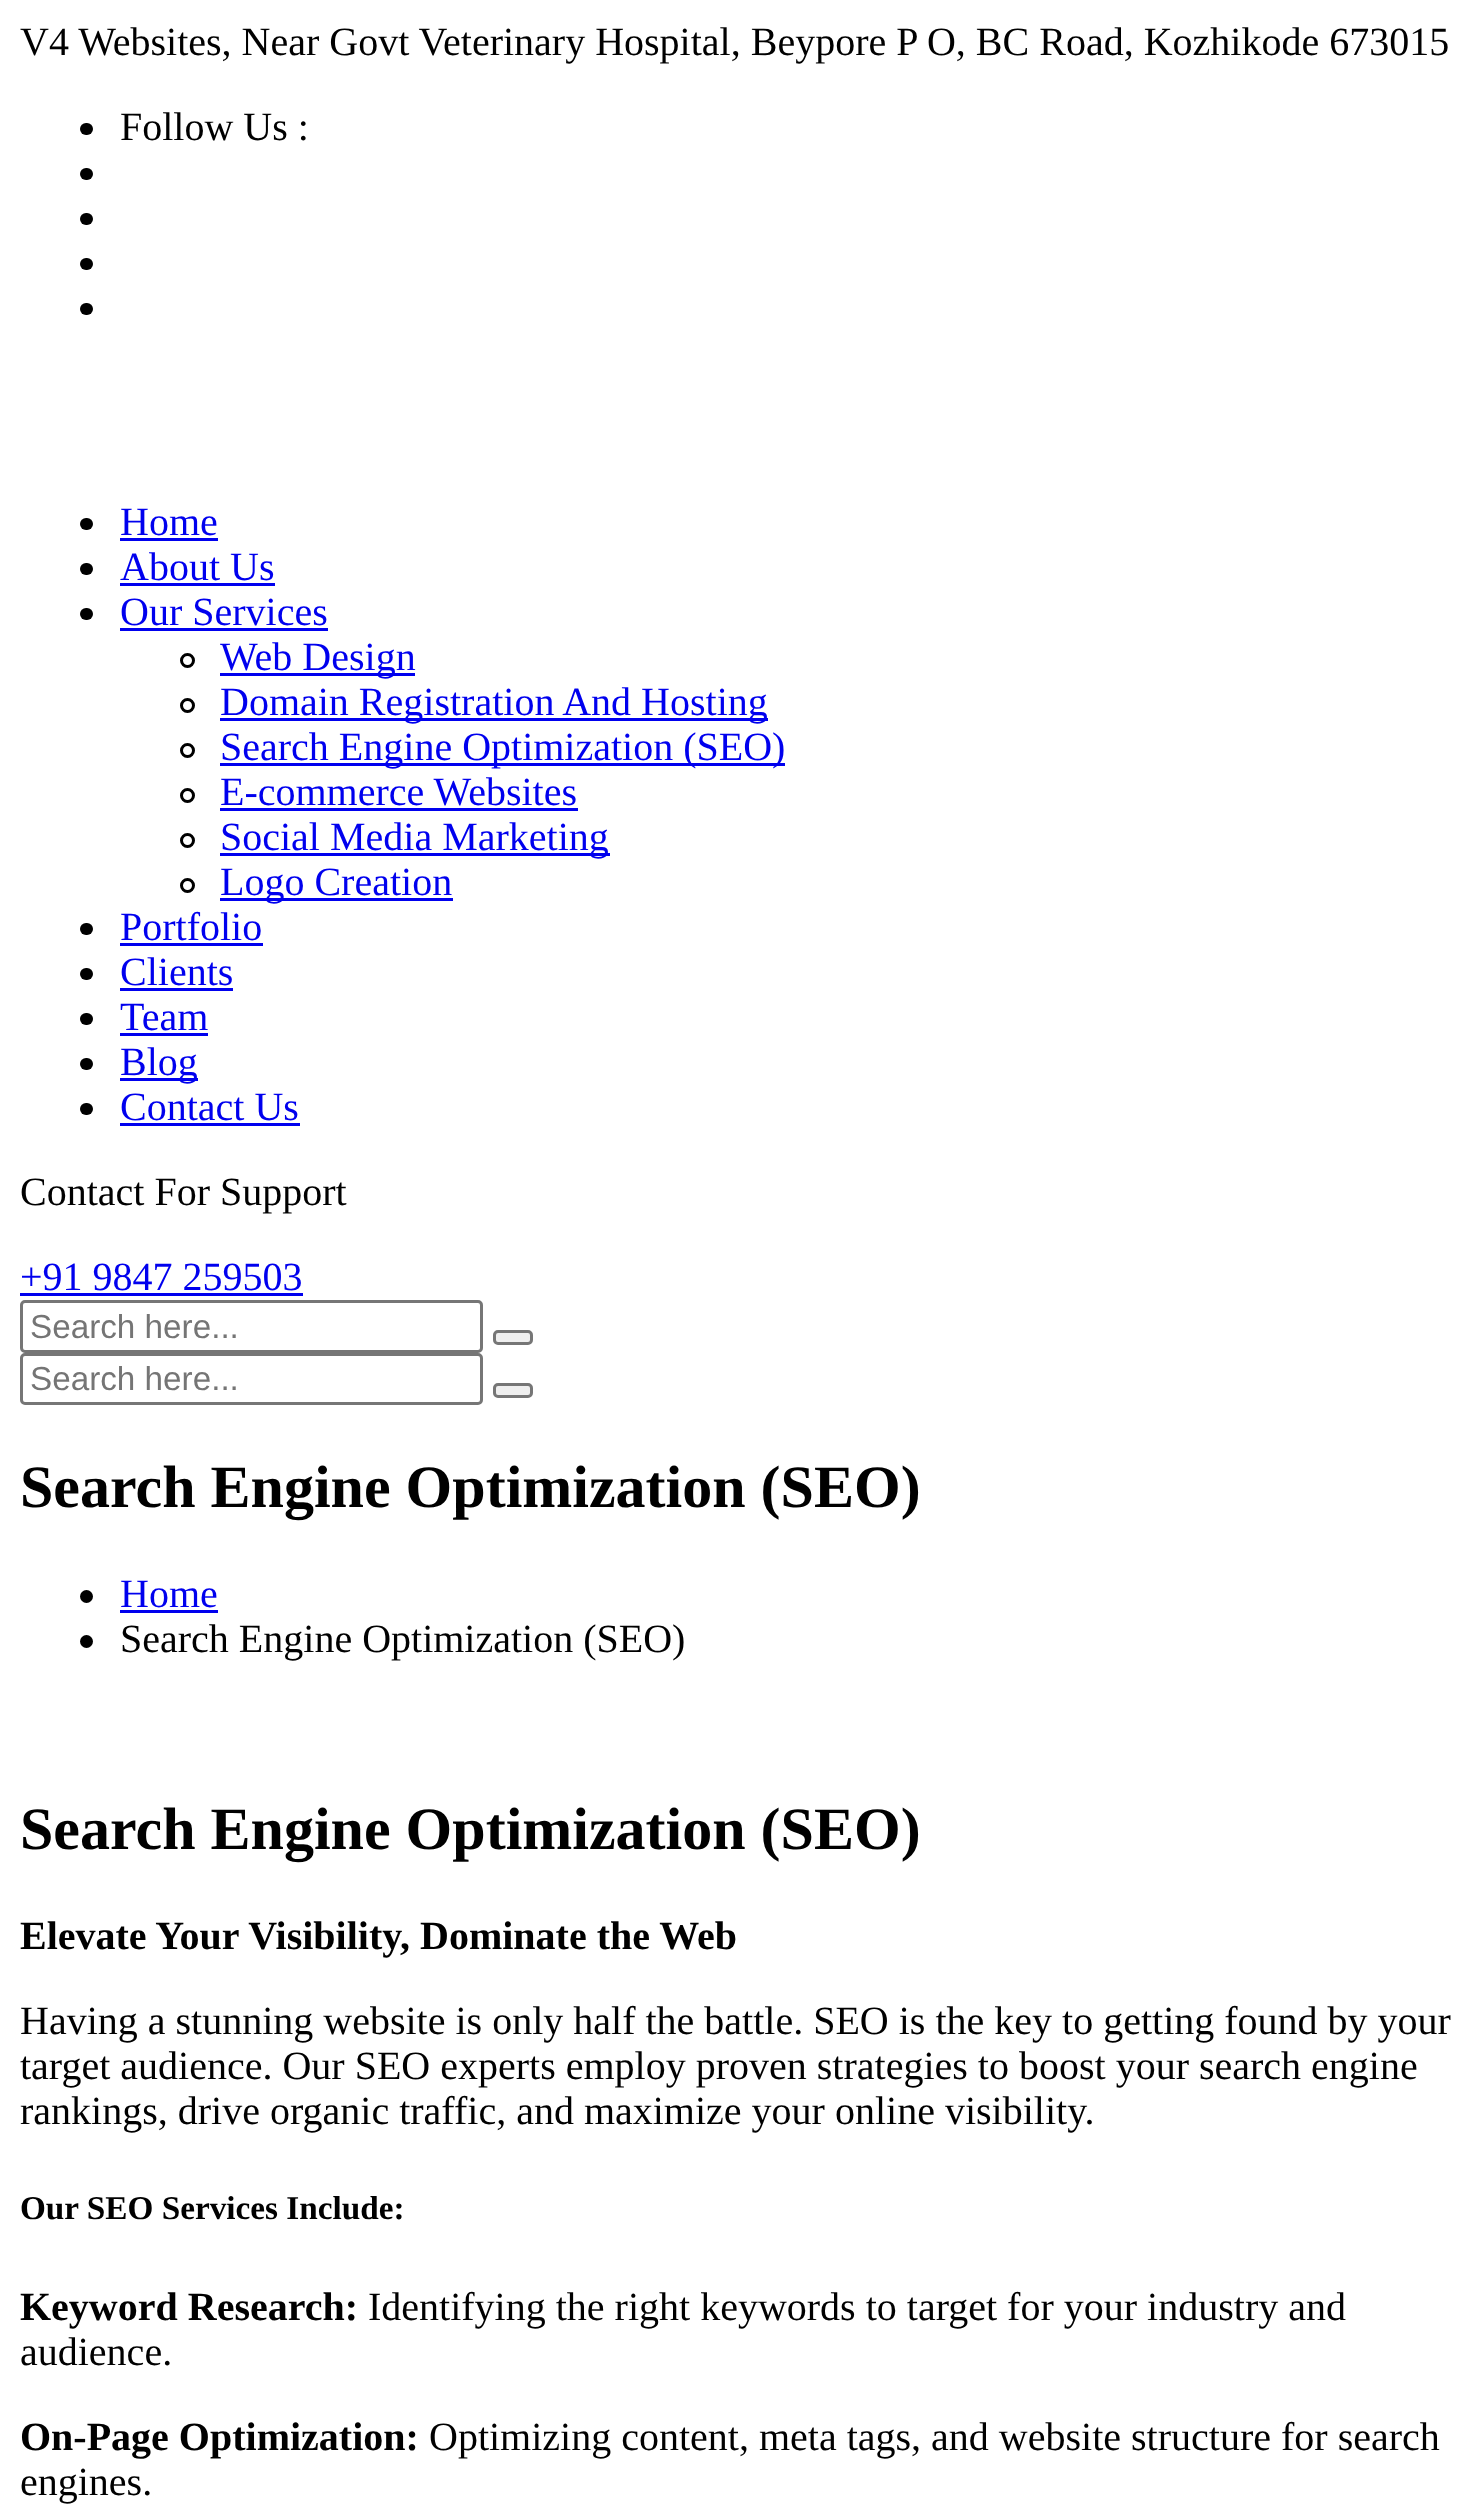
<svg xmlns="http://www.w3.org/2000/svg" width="1482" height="2517">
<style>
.a{font:40px Liberation Serif;fill:#000}
.b{font:40px Liberation Serif;fill:#00e}
.c{font:33.25px Liberation Sans;fill:#757575}
.d{font:bold 60px Liberation Serif;fill:#000}
.e{font:bold 40px Liberation Serif;fill:#000}
.f{font:bold 33.25px Liberation Serif;fill:#000}
</style>
<rect width="100%" height="100%" fill="#fff"/>
<rect fill="#000" x="80" y="123" width="13" height="12" rx="6"/>
<rect fill="#000" x="80" y="168" width="13" height="12" rx="6"/>
<rect fill="#000" x="80" y="213" width="13" height="12" rx="6"/>
<rect fill="#000" x="80" y="258" width="13" height="12" rx="6"/>
<rect fill="#000" x="80" y="303" width="13" height="12" rx="6"/>
<rect fill="#000" x="80" y="518" width="13" height="12" rx="6"/>
<path fill="#00e" d="M120 538h98v3H120z"/>
<rect fill="#000" x="80" y="563" width="13" height="12" rx="6"/>
<path fill="#00e" d="M120 583h155v3H120z"/>
<rect fill="#000" x="80" y="608" width="13" height="12" rx="6"/>
<path fill="#00e" d="M120 628h208v3H120z"/>
<circle fill="none" stroke="#000" stroke-width="3" cx="187.5" cy="660.5" r="6"/>
<path fill="#00e" d="M220 673h195v3H220z"/>
<circle fill="none" stroke="#000" stroke-width="3" cx="187.5" cy="705.5" r="6"/>
<path fill="#00e" d="M220 718h548v3H220z"/>
<circle fill="none" stroke="#000" stroke-width="3" cx="187.5" cy="750.5" r="6"/>
<path fill="#00e" d="M220 763h565v3H220z"/>
<circle fill="none" stroke="#000" stroke-width="3" cx="187.5" cy="795.5" r="6"/>
<path fill="#00e" d="M220 808h358v3H220z"/>
<circle fill="none" stroke="#000" stroke-width="3" cx="187.5" cy="840.5" r="6"/>
<path fill="#00e" d="M220 853h390v3H220z"/>
<circle fill="none" stroke="#000" stroke-width="3" cx="187.5" cy="885.5" r="6"/>
<path fill="#00e" d="M220 898h233v3H220z"/>
<rect fill="#000" x="80" y="923" width="13" height="12" rx="6"/>
<path fill="#00e" d="M120 943h143v3H120z"/>
<rect fill="#000" x="80" y="968" width="13" height="12" rx="6"/>
<path fill="#00e" d="M120 988h113v3H120z"/>
<rect fill="#000" x="80" y="1013" width="13" height="12" rx="6"/>
<path fill="#00e" d="M120 1033h88v3H120z"/>
<rect fill="#000" x="80" y="1058" width="13" height="12" rx="6"/>
<path fill="#00e" d="M120 1078h78v3H120z"/>
<rect fill="#000" x="80" y="1103" width="13" height="12" rx="6"/>
<path fill="#00e" d="M120 1123h180v3H120z"/>
<path fill="#00e" d="M20 1293h283v3H20z"/>
<rect fill="none" stroke="#767676" stroke-width="3" x="21.5" y="1301.5" width="460" height="50" rx="3.5"/>
<rect fill="#efefef" stroke="#767676" stroke-width="3" x="494.5" y="1331.5" width="37" height="12" rx="3.5"/>
<rect fill="none" stroke="#767676" stroke-width="3" x="21.5" y="1354.5" width="460" height="49" rx="3.5"/>
<rect fill="#efefef" stroke="#767676" stroke-width="3" x="494.5" y="1384.5" width="37" height="12" rx="3.5"/>
<circle fill="#000" cx="86.5" cy="1596.5" r="6.5"/>
<path fill="#00e" d="M120 1610h98v3H120z"/>
<circle fill="#000" cx="86.5" cy="1641.5" r="6.5"/>
<text class="a" x="20" y="55">V4 Websites, Near Govt Veterinary Hospital, Beypore P O, BC Road, Kozhikode 673015</text>
<text class="a" x="120" y="140">Follow Us :</text>
<text class="b" x="120" y="535">Home</text>
<text class="b" x="120" y="580">About Us</text>
<text class="b" x="120" y="625">Our Services</text>
<text class="b" x="220" y="670">Web Design</text>
<text class="b" x="220" y="715">Domain Registration And Hosting</text>
<text class="b" x="220" y="760">Search Engine Optimization (SEO)</text>
<text class="b" x="220" y="805">E-commerce Websites</text>
<text class="b" x="220" y="850">Social Media Marketing</text>
<text class="b" x="220" y="895">Logo Creation</text>
<text class="b" x="120" y="940">Portfolio</text>
<text class="b" x="120" y="985">Clients</text>
<text class="b" x="120" y="1030">Team</text>
<text class="b" x="120" y="1075">Blog</text>
<text class="b" x="120" y="1120">Contact Us</text>
<text class="a" x="20" y="1205">Contact For Support</text>
<text class="b" x="20" y="1290">+91 9847 259503</text>
<text class="c" x="30" y="1338">Search here...</text>
<text class="c" x="30" y="1390">Search here...</text>
<text class="d" x="20" y="1507">Search Engine Optimization (SEO)</text>
<text class="b" x="120" y="1607">Home</text>
<text class="a" x="120" y="1652">Search Engine Optimization (SEO)</text>
<text class="d" x="20" y="1849">Search Engine Optimization (SEO)</text>
<text class="e" x="20" y="1949">Elevate Your Visibility, Dominate the Web</text>
<text class="a" x="20" y="2034">Having a stunning website is only half the battle. SEO is the key to getting found by your</text>
<text class="a" x="20" y="2079">target audience. Our SEO experts employ proven strategies to boost your search engine</text>
<text class="a" x="20" y="2124">rankings, drive organic traffic, and maximize your online visibility.</text>
<text class="f" x="20" y="2219">Our SEO Services Include:</text>
<text class="e" x="20" y="2320">Keyword Research:</text>
<text class="a" x="368" y="2320">Identifying the right keywords to target for your industry and</text>
<text class="a" x="20" y="2365">audience.</text>
<text class="e" x="20" y="2450">On-Page Optimization:</text>
<text class="a" x="429" y="2450">Optimizing content, meta tags, and website structure for search</text>
<text class="a" x="20" y="2495">engines.</text>
</svg>
